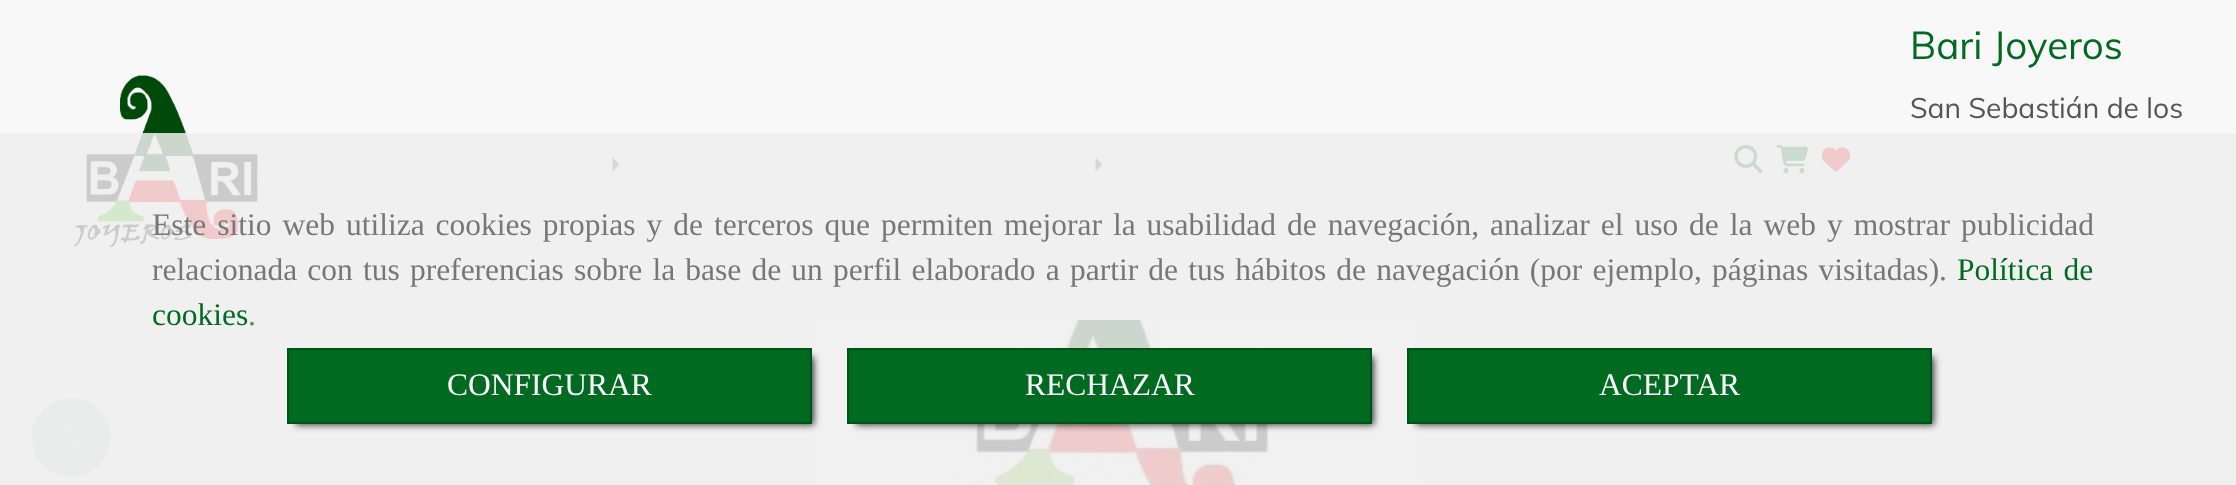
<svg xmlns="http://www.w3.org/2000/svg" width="2236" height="485">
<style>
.a{font:38.5px Muli;fill:#006a21}
.b{font:28.25px Muli;fill:#555}
.c{font:31.5px Liberation Serif;fill:#777}
.d{font:31.5px Liberation Serif;fill:#006a21}
.e{font:31.5px Liberation Serif;fill:#fff}
</style>
<rect width="100%" height="100%" fill="#f8f8f8"/>
<image href="1.png" x="73" y="75" width="185" height="172"/>
<path fill="#555" d="M612.5 171.5v-14l7 7z"/>
<path fill="#555" d="M1095.5 171.5v-14l7 7z"/>
<image href="2.png" x="1734" y="144" width="29" height="30"/>
<image href="3.png" x="1776" y="144" width="32" height="30"/>
<image href="4.png" x="1821" y="147" width="30" height="25"/>
<path fill="#c6dccd" d="M71 477c37 0 54-48 24-71c-7-5-16-8-24-8c-9 0-17 3-24 8c-30 23-13 71 24 71z"/>
<image href="5.png" x="55" y="421" width="30" height="32"/>
<image href="6.png" x="816" y="320" width="605" height="165"/>
<path fill="#eeeeeed9" d="M0 133h2236v352H0z"/>
<path fill="#000000bf" filter="blur(3.5px)" d="M296 357h518v68H296z"/>
<path fill="#006a21" stroke="#005119" stroke-width="2" d="M288 349h523v74H288z"/>
<path fill="#000000bf" filter="blur(3.5px)" d="M856 357h518v68H856z"/>
<path fill="#006a21" stroke="#005119" stroke-width="2" d="M848 349h523v74H848z"/>
<path fill="#000000bf" filter="blur(3.5px)" d="M1416 357h518v68H1416z"/>
<path fill="#006a21" stroke="#005119" stroke-width="2" d="M1408 349h523v74H1408z"/>
<text class="a" x="1910" y="59">Bari Joyeros</text>
<text class="b" x="1910" y="118">San Sebastián de los</text>
<text class="c" x="152" y="235" word-spacing="3.1">Este sitio web utiliza cookies propias y de terceros que permiten mejorar la usabilidad de navegación, analizar el uso de la web y mostrar publicidad</text>
<text class="c" x="152" y="280" word-spacing="2.3">relacionada con tus preferencias sobre la base de un perfil elaborado a partir de tus hábitos de navegación (por ejemplo, páginas visitadas).</text>
<text class="d" x="1957" y="280" word-spacing="2.3">Política de</text>
<text class="d" x="152" y="325">cookies</text>
<text class="c" x="248" y="325">.</text>
<text class="e" x="447" y="395">CONFIGURAR</text>
<text class="e" x="1025" y="395">RECHAZAR</text>
<text class="e" x="1599" y="395">ACEPTAR</text>
</svg>
